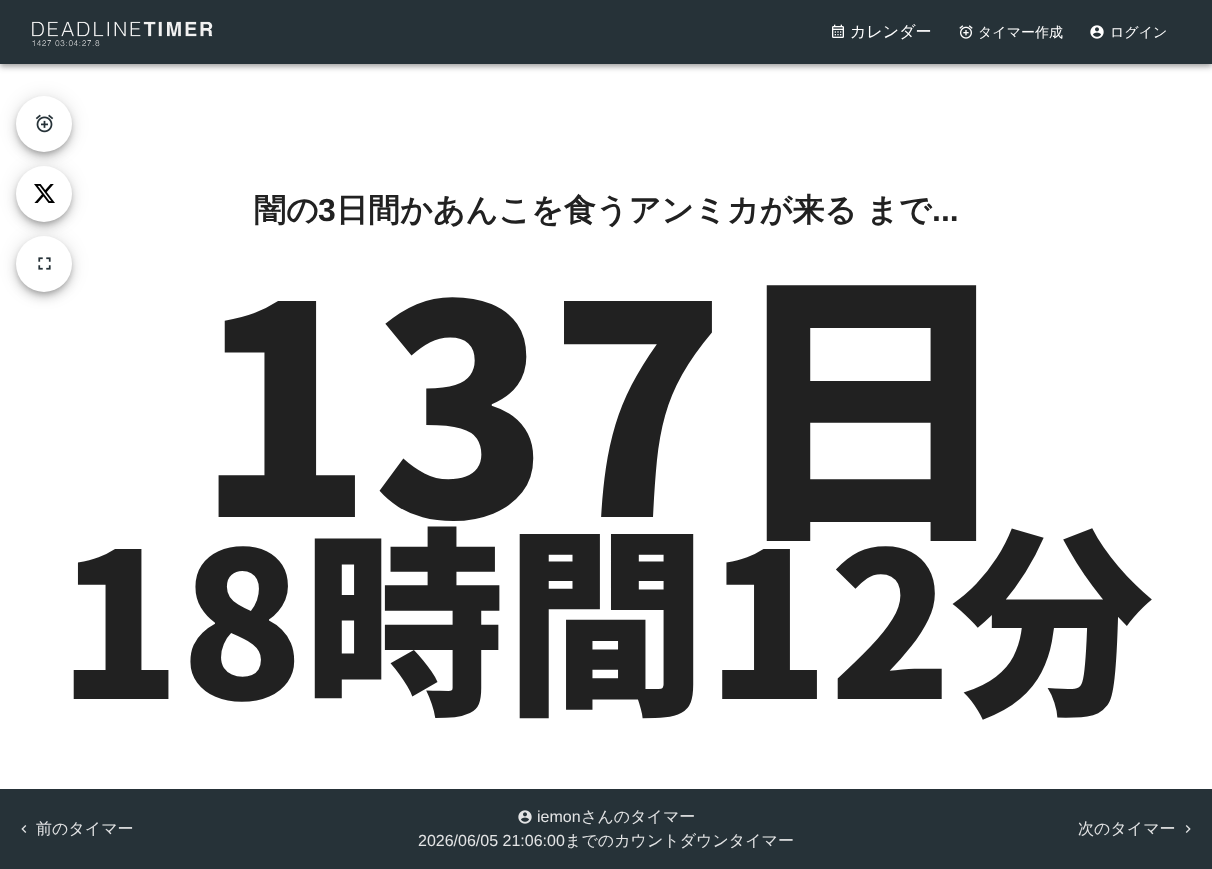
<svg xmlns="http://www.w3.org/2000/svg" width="1212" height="869">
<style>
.a{font:500 16px WenQuanYi Zen Hei;fill:#fff}
.b{font:500 14px WenQuanYi Zen Hei;fill:#fff}
.c{font:bold 32px WenQuanYi Zen Hei;fill:#212121}
.d{font:bold 32px Liberation Sans;fill:#212121}
.e{font:100 290px Noto Sans JP;fill:#212121}
.f{font:100 201.5px Noto Sans JP;fill:#212121}
.g{font:500 16px WenQuanYi Zen Hei;fill:#e3e4e5}
.h{font:16px Liberation Sans;fill:#e3e4e5}
</style>
<rect width="100%" height="100%" fill="#fff"/>
<path fill="#0000001f" filter="blur(5px)" d="M0 1h1212v64H0z"/>
<path fill="#00000024" filter="blur(2.5px)" d="M0 4h1212v64H0z"/>
<path fill="#00000033" filter="blur(2px)" d="M1 3h1210v62H1z"/>
<path fill="#263238" d="M0 0h1212v64H0z"/>
<image href="1.png" x="32" y="21" width="181" height="26"/>
<image href="2.png" x="832" y="24" width="12" height="14"/>
<image href="3.png" x="959" y="25" width="14" height="14"/>
<image href="4.png" x="1090" y="25" width="14" height="14"/>
<rect fill="#0000001f" filter="blur(9px)" x="16" y="97" width="56" height="56" rx="28"/>
<rect fill="#00000024" filter="blur(5px)" x="16" y="102" width="56" height="56" rx="28"/>
<rect fill="#00000033" filter="blur(2.5px)" x="17" y="100" width="54" height="54" rx="27"/>
<circle fill="#fff" cx="44" cy="124" r="28"/>
<image href="5.png" x="35" y="114" width="19" height="19"/>
<rect fill="#0000001f" filter="blur(9px)" x="16" y="167" width="56" height="56" rx="28"/>
<rect fill="#00000024" filter="blur(5px)" x="16" y="172" width="56" height="56" rx="28"/>
<rect fill="#00000033" filter="blur(2.5px)" x="17" y="170" width="54" height="54" rx="27"/>
<circle fill="#fff" cx="44" cy="194" r="28"/>
<image href="6.png" x="34" y="184" width="21" height="19"/>
<rect fill="#0000001f" filter="blur(9px)" x="16" y="237" width="56" height="56" rx="28"/>
<rect fill="#00000024" filter="blur(5px)" x="16" y="242" width="56" height="56" rx="28"/>
<rect fill="#00000033" filter="blur(2.5px)" x="17" y="240" width="54" height="54" rx="27"/>
<circle fill="#fff" cx="44" cy="264" r="28"/>
<image href="7.png" x="38" y="257" width="13" height="13"/>
<path fill="#263238" d="M0 789h1212v80H0z"/>
<image href="8.png" x="21" y="825" width="6" height="8"/>
<image href="9.png" x="518" y="810" width="14" height="14"/>
<image href="10.png" x="1185" y="825" width="6" height="8"/>
<text class="a" x="850" y="37">カレンダー</text>
<text class="b" x="978" y="37">タイマー作成</text>
<text class="b" x="1110" y="37">ログイン</text>
<text class="c" x="254" y="221">闇の</text>
<text class="d" x="318" y="221">3</text>
<text class="c" x="336" y="221">日間かあんこを食うアンミカが来る</text>
<text class="c" x="866" y="221">まで</text>
<text class="d" x="932" y="221">...</text>
<text class="e" x="196" y="517">137日</text>
<text class="f" x="58" y="699">18時間12分</text>
<text class="g" x="36" y="834">前のタイマー</text>
<text class="h" x="537" y="822">iemon</text>
<text class="g" x="581" y="822">さんのタイマー</text>
<text class="h" x="418" y="846">2026/06/05 21:06:00</text>
<text class="g" x="565" y="846">までのカウントダウンタイマー</text>
<text class="g" x="1078" y="834">次のタイマー</text>
</svg>
